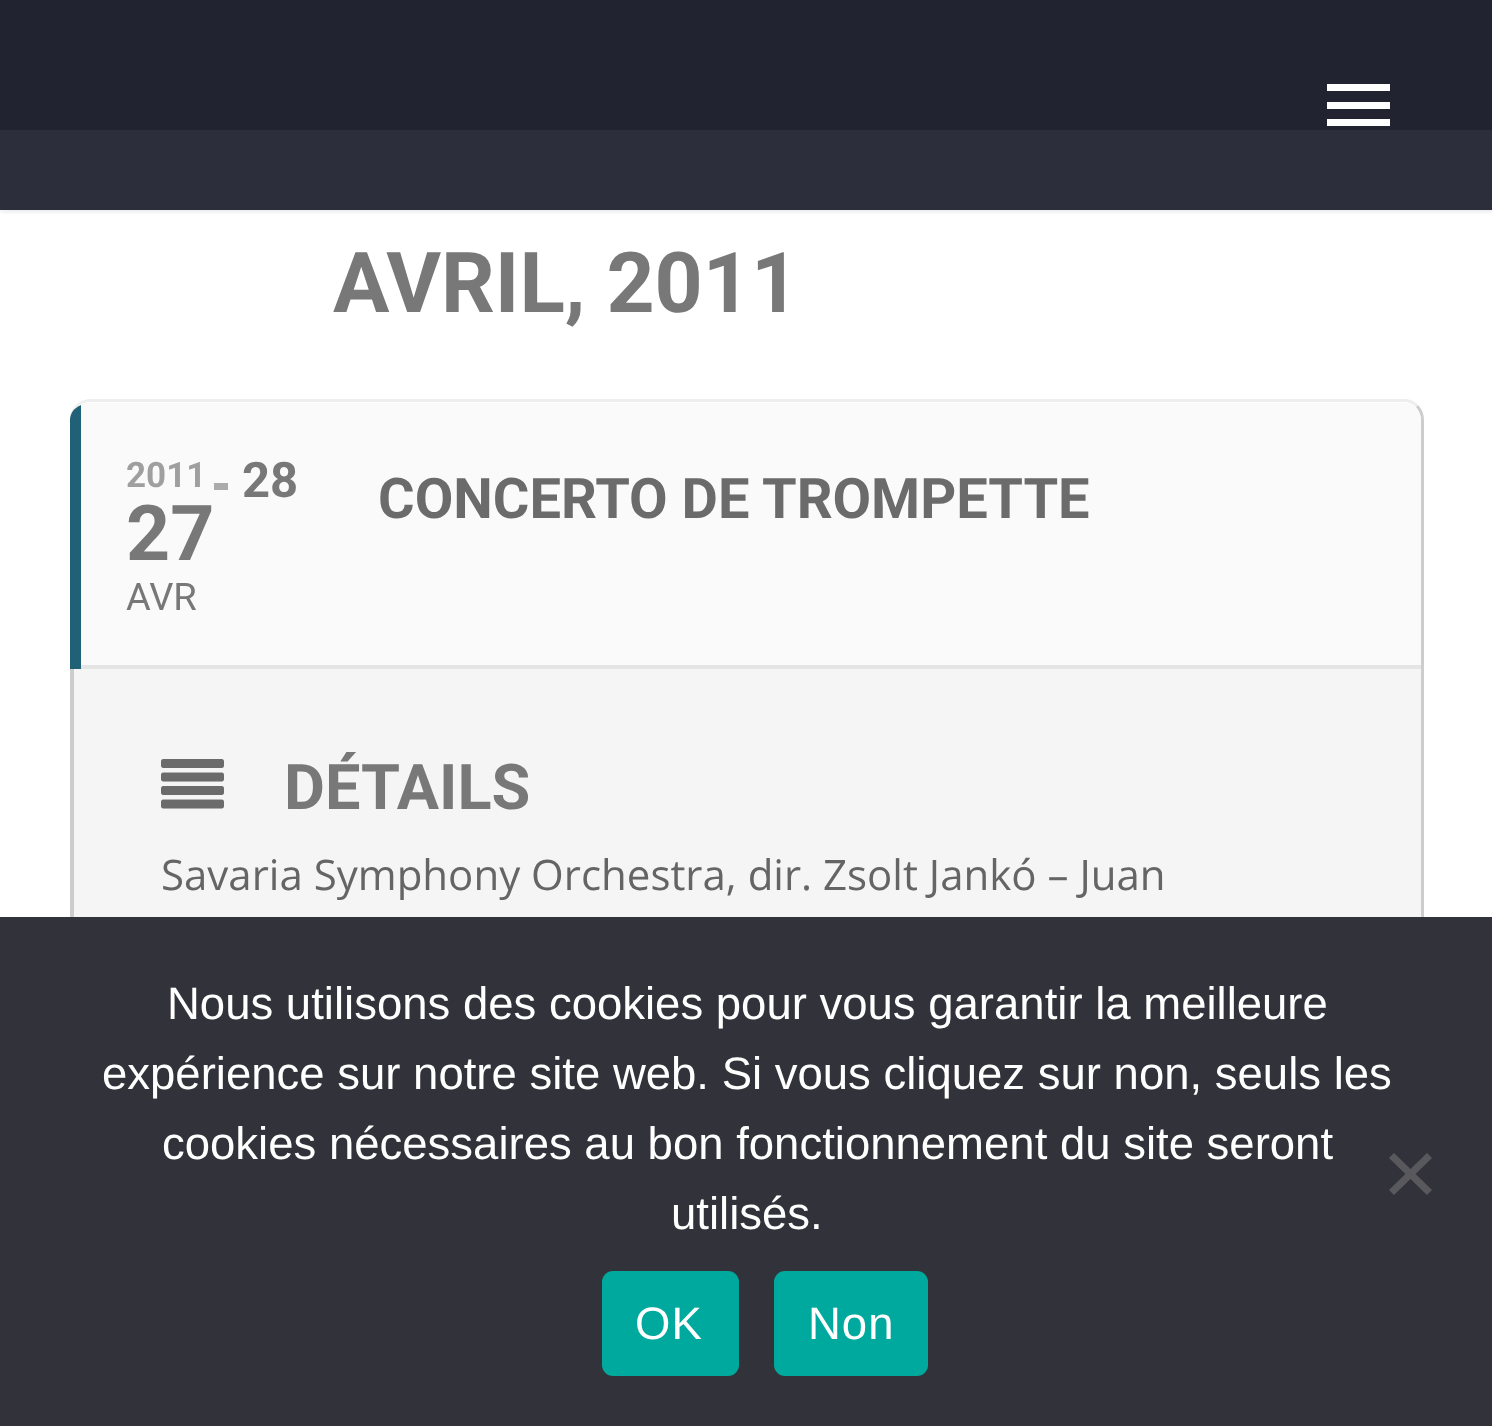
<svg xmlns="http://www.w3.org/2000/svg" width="1492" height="1426">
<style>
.a{font:bold 84px Roboto;fill:#787878}
.b{font:bold 35px Roboto;fill:#9f9f9f}
.c{font:bold 77px Roboto;fill:#787878}
.d{font:38px Roboto;fill:#787878}
.e{font:bold 49px Roboto;fill:#787878}
.f{font:bold 56px Roboto;fill:#6b6b6b}
.g{font:bold 63px Roboto;fill:#787878}
.h{font:42px Open Sans;fill:#656565}
.i{font:45.5px Liberation Sans;fill:#fff}
.j{font:45.5px Liberation Sans;letter-spacing:1px;fill:#fff}
</style>
<defs>
<clipPath id="clip1"><path d="M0 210h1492v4H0z"/></clipPath>
</defs>
<rect width="100%" height="100%" fill="#fff"/>
<path fill="#2c2e3b" d="M0 130h1492v80H0z"/>
<path fill="#212331" d="M0 0h1492v130H0z"/>
<g clip-path="url(#clip1)">
<path fill="#38455433" filter="blur(3.5px)" d="M0 0h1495v210H0z"/>
</g>
<path fill="#fff" d="M1327 84h63v7H1327z"/>
<path fill="#fff" d="M1327 102h63v7H1327z"/>
<path fill="#fff" d="M1327 119h63v7H1327z"/>
<path fill="#efeeee" d="M91 399h1313c6 0 11 2 14 6l-2 2c-3-3-7-5-12-5h-1313c-12 0-21 8-21 18c0-12 9-21 21-21z"/>
<path fill="#cdcdcd" d="M1418 405l-2 2c3 4 5 8 5 13v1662c0 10-6 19-14 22h1c9-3 16-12 16-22v-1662c0-6-2-11-6-15z"/>
<path fill="#fafafa" d="M70 420v249h1351v-249c0-8-6-15-13-17h-1322c-9 2-16 9-16 17z"/>
<path fill="#206177" d="M70 420v249h11v-264c-7 3-11 8-11 15z"/>
<path fill="#ababab" d="M214 483h14v7H214z"/>
<path fill="#e5e5e5" d="M81 665h1340v4H81z"/>
<path fill="#f5f5f5" d="M70 669v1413c0 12 9 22 21 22h1313c9 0 17-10 17-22v-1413z"/>
<path fill="#cdcdcd" d="M70 669v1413c0 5 1 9 4 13v-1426z"/>
<image href="1.png" x="161" y="759" width="63" height="50"/>
<path fill="#32323a" d="M0 917h1492v509H0z"/>
<path fill="#59595d" d="M1427 1153l5 5l-38 37l-5-5z"/>
<path fill="#59595d" d="M1389 1158l5-5l38 37l-5 5z"/>
<rect fill="#00a99d" x="602" y="1271" width="137" height="105" rx="11"/>
<rect fill="#00a99d" x="774" y="1271" width="154" height="105" rx="11"/>
<text class="a" x="333" y="312">AVRIL, 2011</text>
<text class="b" x="126" y="487">2011</text>
<text class="c" x="126" y="560">27</text>
<text class="d" x="126" y="610">AVR</text>
<text class="e" x="242" y="497">28</text>
<text class="f" x="378" y="518">CONCERTO DE TROMPETTE</text>
<text class="g" x="284" y="809">DÉTAILS</text>
<text class="h" x="161" y="890">Savaria Symphony Orchestra, dir. Zsolt Jankó – Juan</text>
<text class="i" x="167" y="1019">Nous utilisons des cookies pour vous garantir la meilleure</text>
<text class="i" x="102" y="1089">expérience sur notre site web. Si vous cliquez sur non, seuls les</text>
<text class="i" x="162" y="1159">cookies nécessaires au bon fonctionnement du site seront</text>
<text class="i" x="671" y="1229">utilisés.</text>
<text class="j" x="635" y="1339">OK</text>
<text class="j" x="808" y="1339">Non</text>
</svg>
